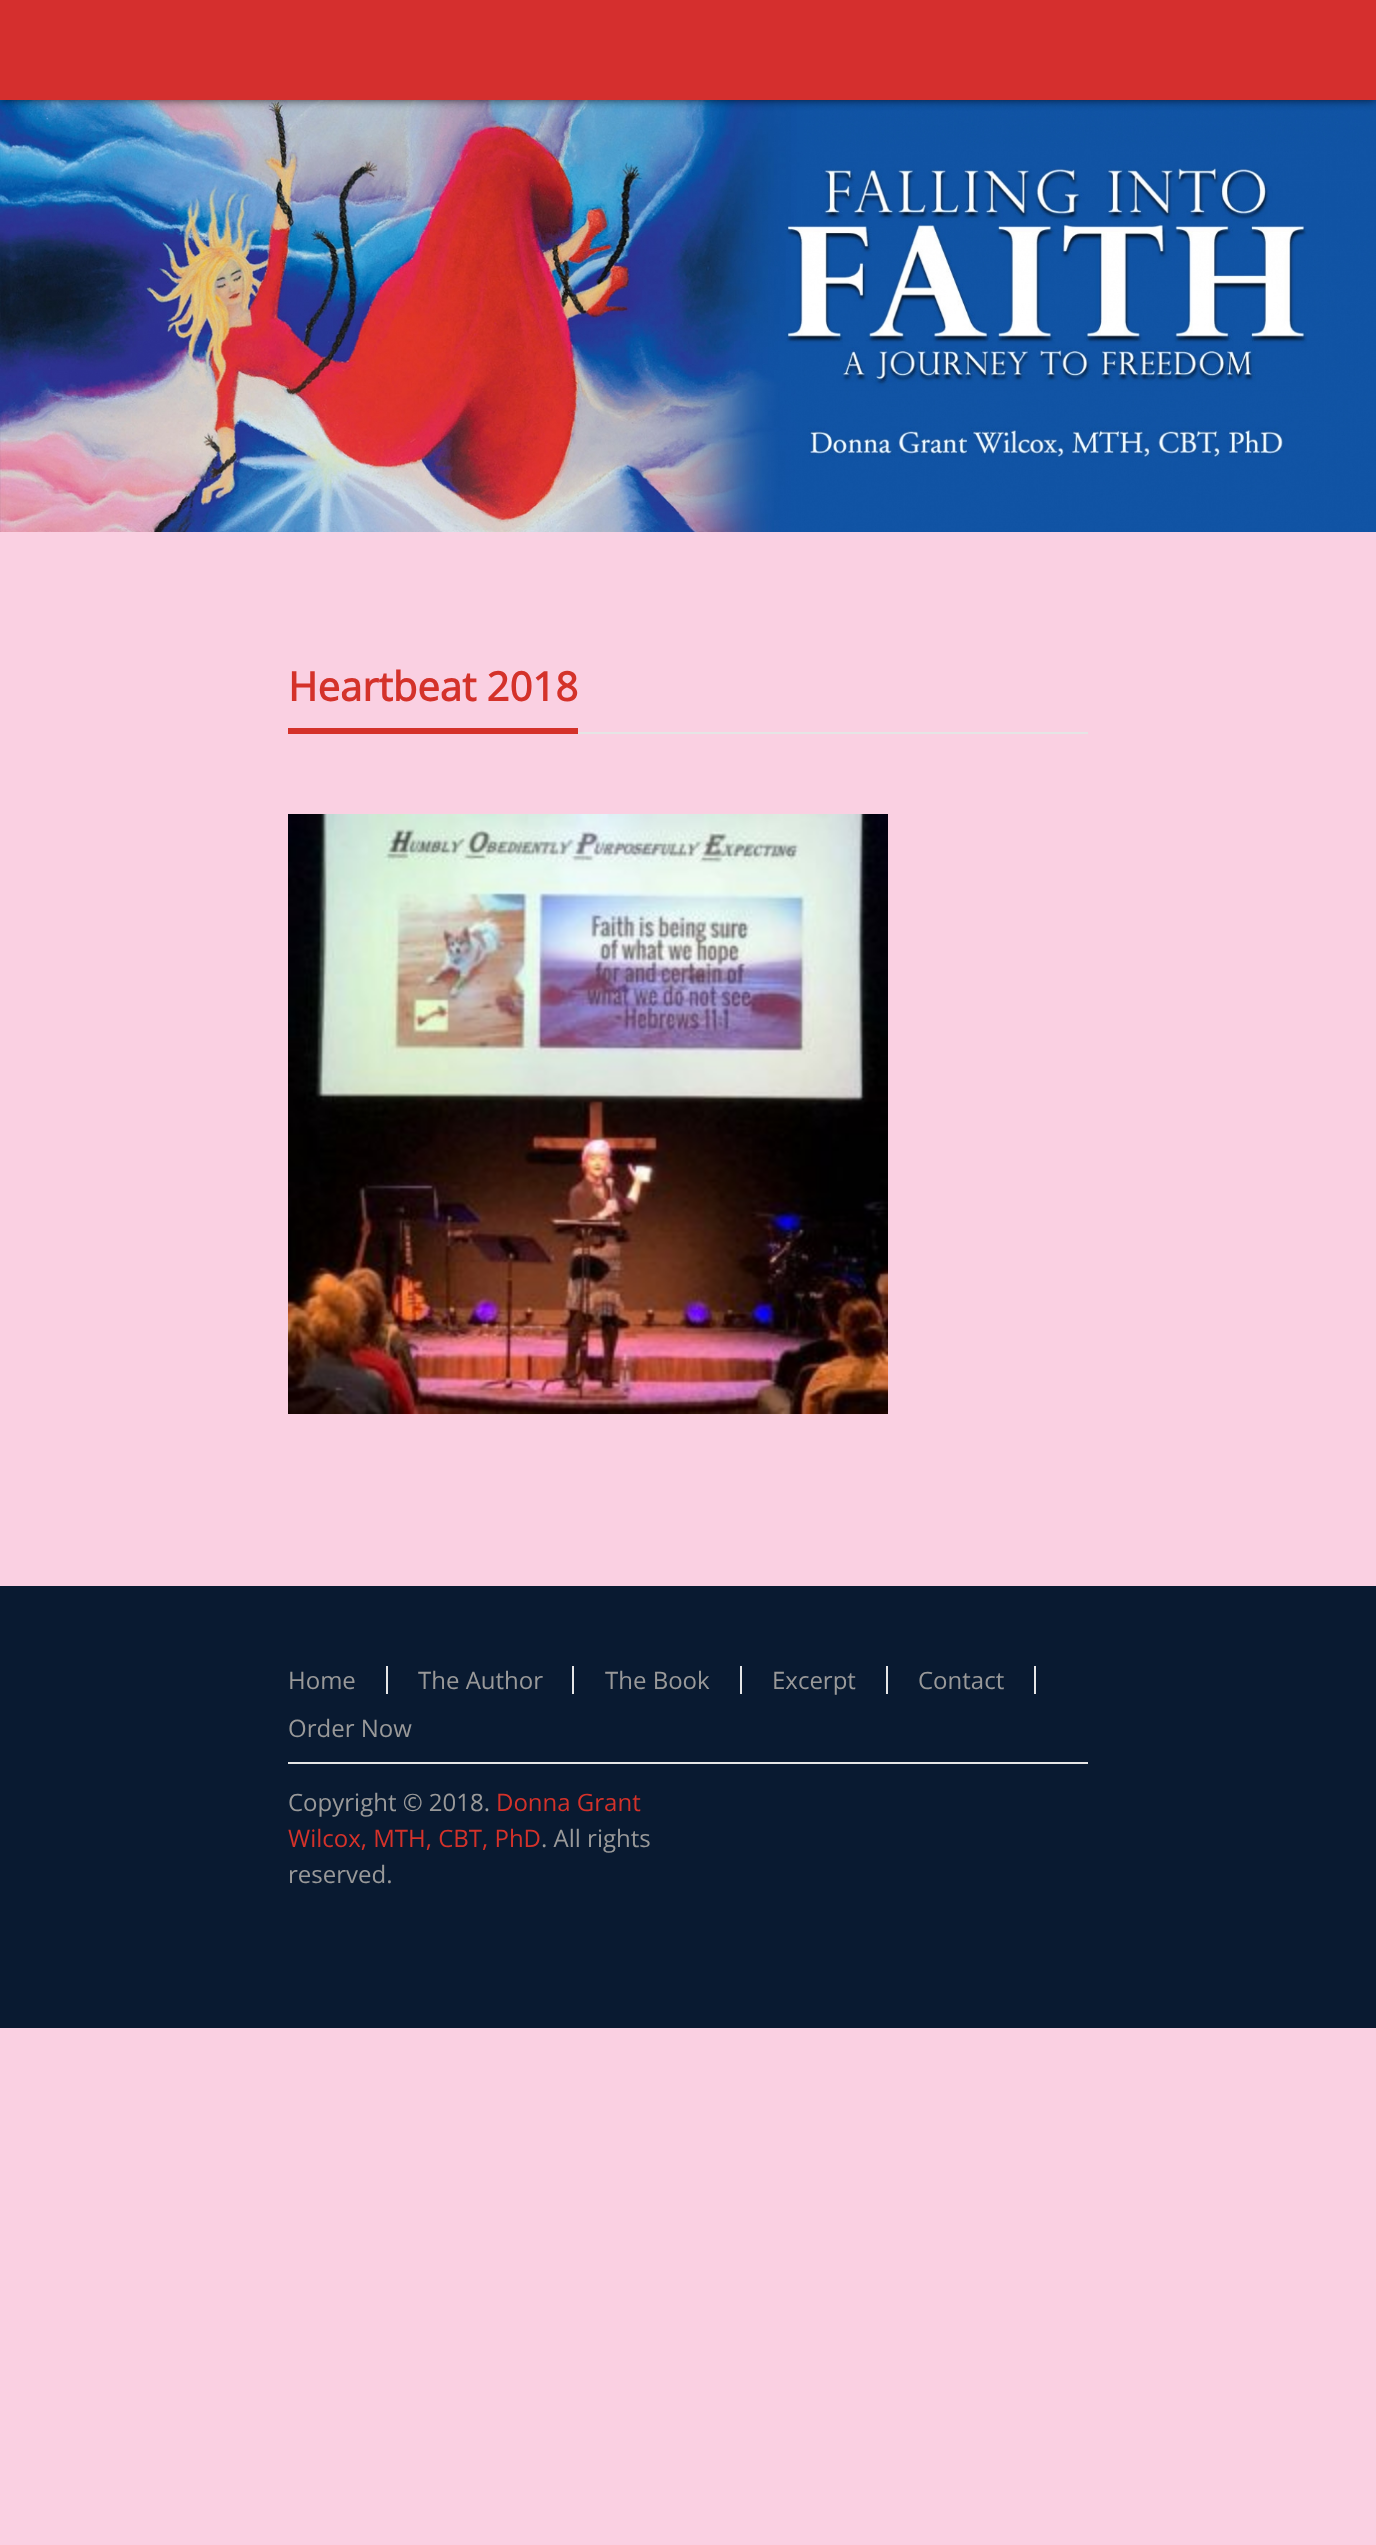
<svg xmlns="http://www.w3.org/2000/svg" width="1376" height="2545">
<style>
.a{font:bold 40px Open Sans;fill:#d4322a}
.b{font:24px Open Sans;fill:#999}
.c{font:24px Open Sans;fill:#d4322a}
</style>
<rect width="100%" height="100%" fill="#fad0e2"/>
<image href="1.png" x="0" y="100" width="1376" height="432"/>
<path fill="#000000b3" filter="blur(5px)" d="M0 0h1376v100H0z"/>
<path fill="#d52f2e" d="M0 0h1376v100H0z"/>
<path fill="#e5e5e5" d="M578 732h510v2H578z"/>
<path fill="#d4322a" d="M288 728h290v6H288z"/>
<image href="2.png" x="288" y="814" width="600" height="600"/>
<path fill="#091a31" d="M0 1586h1376v442H0z"/>
<path fill="#e5e5e5" d="M386 1666h2v28H386z"/>
<path fill="#e5e5e5" d="M572 1666h2v28H572z"/>
<path fill="#e5e5e5" d="M740 1666h2v28H740z"/>
<path fill="#e5e5e5" d="M886 1666h2v28H886z"/>
<path fill="#e5e5e5" d="M1034 1666h2v28H1034z"/>
<path fill="#e5e5e5" d="M288 1762h800v2H288z"/>
<text class="a" x="288" y="701">Heartbeat 2018</text>
<text class="b" x="288" y="1689">Home</text>
<text class="b" x="418" y="1689">The Author</text>
<text class="b" x="605" y="1689">The Book</text>
<text class="b" x="772" y="1689">Excerpt</text>
<text class="b" x="918" y="1689">Contact</text>
<text class="b" x="288" y="1737">Order Now</text>
<text class="b" x="288" y="1811">Copyright © 2018.</text>
<text class="c" x="496" y="1811">Donna Grant</text>
<text class="c" x="288" y="1847">Wilcox, MTH, CBT, PhD</text>
<text class="b" x="541" y="1847">. All rights</text>
<text class="b" x="288" y="1883">reserved.</text>
</svg>
